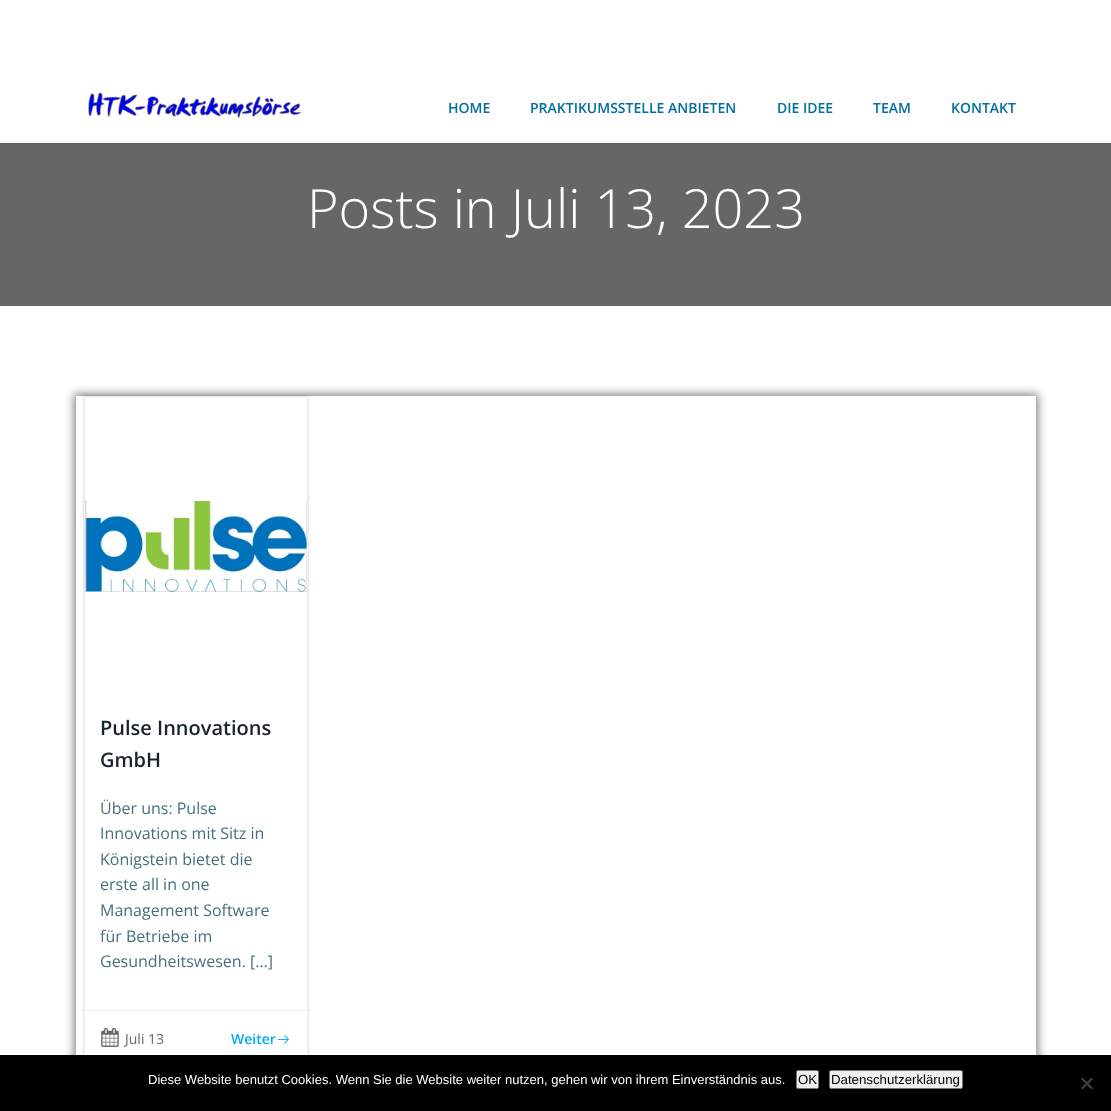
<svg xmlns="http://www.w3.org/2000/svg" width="1111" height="1111">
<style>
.a{font:600 14px Open Sans;fill:#026e9f}
.b{font:300 54px Open Sans;fill:#fff}
.c{font:600 20px Open Sans;fill:#17252a}
.d{font:16px Open Sans;fill:#46707f}
.e{font:14px Open Sans;fill:#666}
.f{font:600 14px Open Sans;fill:#03a9f4}
.g{font:13px Liberation Sans;fill:#fff}
.h{font:13.25px Liberation Sans;fill:#000}
</style>
<defs>
<clipPath id="clip1"><path d="M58 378h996v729h-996zm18 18h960v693h-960z" clip-rule="evenodd"/></clipPath>
<clipPath id="clip2"><path d="M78 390h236v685h-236zm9 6h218c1.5 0 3 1.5 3 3v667c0 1.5-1.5 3-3 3h-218c-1.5 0-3-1.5-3-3v-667c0-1.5 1.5-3 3-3z" clip-rule="evenodd"/></clipPath>
</defs>
<rect width="100%" height="100%" fill="#fff"/>
<image href="1.png" x="88" y="92" width="214" height="26"/>
<path fill="#666" d="M0 143h1111v163H0z"/>
<g clip-path="url(#clip1)">
<path fill="#00000080" filter="blur(5px)" d="M74 394h964v697H74z"/>
</g>
<g clip-path="url(#clip2)">
<rect fill="#00000033" filter="blur(1.5px)" x="84" y="396" width="224" height="673" rx="3"/>
</g>
<rect fill="none" stroke="#eee" x="84.5" y="396.5" width="223" height="672" rx="2.5"/>
<image href="2.png" x="85" y="501" width="222" height="91"/>
<path fill="#eee" d="M85 1010h222v1H85z"/>
<image href="3.png" x="101" y="1028" width="18" height="19"/>
<image href="4.png" x="277" y="1035" width="12" height="9"/>
<path fill="#000" d="M0 1055h1111v56H0z"/>
<rect fill="#efefef" stroke="#767676" x="796.5" y="1070.5" width="22" height="18" rx="1.5"/>
<rect fill="#efefef" stroke="#767676" x="829.5" y="1070.5" width="133" height="18" rx="1.5"/>
<path fill="#404040" d="M1091.5 1077.5l1.5 1.5l-10.5 10.5l-1.5-1.5z"/>
<path fill="#404040" d="M1081 1079l1.5-1.5l10.5 10.5l-1.5 1.5z"/>
<text class="a" x="448" y="113">HOME</text>
<text class="a" x="530" y="113">PRAKTIKUMSSTELLE ANBIETEN</text>
<text class="a" x="777" y="113">DIE IDEE</text>
<text class="a" x="873" y="113">TEAM</text>
<text class="a" x="951" y="113">KONTAKT</text>
<text class="b" x="307" y="228">Posts in Juli 13, 2023</text>
<text class="c" x="100" y="735">Pulse Innovations</text>
<text class="c" x="100" y="767">GmbH</text>
<text class="d" x="100" y="814">Über uns: Pulse</text>
<text class="d" x="100" y="839">Innovations mit Sitz in</text>
<text class="d" x="100" y="865">Königstein bietet die</text>
<text class="d" x="100" y="890">erste all in one</text>
<text class="d" x="100" y="916">Management Software</text>
<text class="d" x="100" y="942">für Betriebe im</text>
<text class="d" x="100" y="967">Gesundheitswesen. […]</text>
<text class="e" x="125" y="1044">Juli 13</text>
<text class="f" x="231" y="1044">Weiter</text>
<text class="g" x="148" y="1084">Diese Website benutzt Cookies. Wenn Sie die Website weiter nutzen, gehen wir von ihrem Einverständnis aus.</text>
<text class="h" x="798" y="1084">OK</text>
<text class="h" x="831" y="1084">Datenschutzerklärung</text>
</svg>
